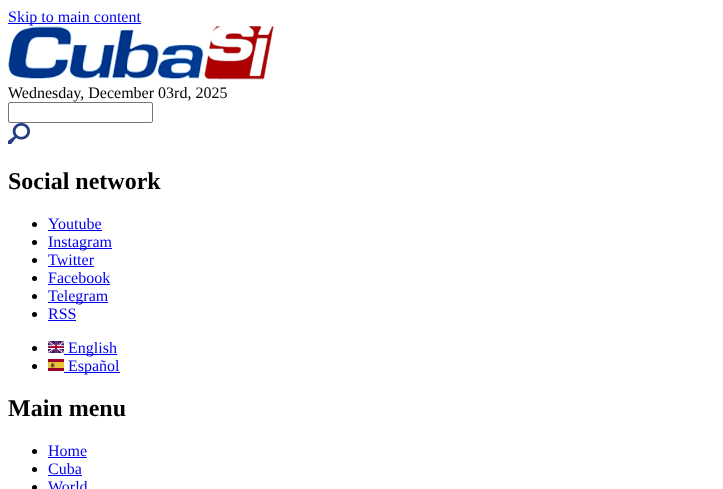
<svg xmlns="http://www.w3.org/2000/svg" width="723" height="489">
<style>
.a{font:16px Liberation Serif;fill:#00e}
.b{font:16px Liberation Serif;fill:#000}
.c{font:bold 24px Liberation Serif;fill:#000}
</style>
<rect width="100%" height="100%" fill="#fff"/>
<path fill="#00e" d="M8 23h133v1H8z"/>
<image href="1.png" x="8" y="26" width="266" height="54"/>
<rect fill="none" stroke="#767676" x="8.5" y="102.5" width="144" height="20" rx="1.5"/>
<image href="2.png" x="8" y="123" width="22" height="21"/>
<circle fill="#000" cx="34.5" cy="224.5" r="2.5"/>
<path fill="#00e" d="M48 230h54v1H48z"/>
<circle fill="#000" cx="34.5" cy="242.5" r="2.5"/>
<path fill="#00e" d="M48 248h64v1H48z"/>
<circle fill="#000" cx="34.5" cy="260.5" r="2.5"/>
<path fill="#00e" d="M48 266h46v1H48z"/>
<circle fill="#000" cx="34.5" cy="278.5" r="2.5"/>
<path fill="#00e" d="M48 284h62v1H48z"/>
<circle fill="#000" cx="34.5" cy="296.5" r="2.5"/>
<path fill="#00e" d="M48 302h60v1H48z"/>
<circle fill="#000" cx="34.5" cy="314.5" r="2.5"/>
<path fill="#00e" d="M48 320h28v1H48z"/>
<circle fill="#000" cx="34.5" cy="348.5" r="2.5"/>
<image href="3.png" x="48" y="341" width="16" height="12"/>
<path fill="#00e" d="M64 354h53v1H64z"/>
<circle fill="#000" cx="34.5" cy="366.5" r="2.5"/>
<image href="4.png" x="48" y="359" width="16" height="12"/>
<path fill="#00e" d="M64 372h56v1H64z"/>
<circle fill="#000" cx="34.5" cy="451.5" r="2.5"/>
<path fill="#00e" d="M48 457h39v1H48z"/>
<circle fill="#000" cx="34.5" cy="469.5" r="2.5"/>
<path fill="#00e" d="M48 475h34v1H48z"/>
<circle fill="#000" cx="34.5" cy="487.5" r="2.5"/>
<text class="a" x="8" y="22">Skip to main content</text>
<text class="b" x="8" y="98">Wednesday, December 03rd, 2025</text>
<text class="c" x="8" y="189">Social network</text>
<text class="a" x="48" y="229">Youtube</text>
<text class="a" x="48" y="247">Instagram</text>
<text class="a" x="48" y="265">Twitter</text>
<text class="a" x="48" y="283">Facebook</text>
<text class="a" x="48" y="301">Telegram</text>
<text class="a" x="48" y="319">RSS</text>
<text class="a" x="68" y="353">English</text>
<text class="a" x="68" y="371">Español</text>
<text class="c" x="8" y="416">Main menu</text>
<text class="a" x="48" y="456">Home</text>
<text class="a" x="48" y="474">Cuba</text>
<text class="a" x="48" y="492">World</text>
</svg>
